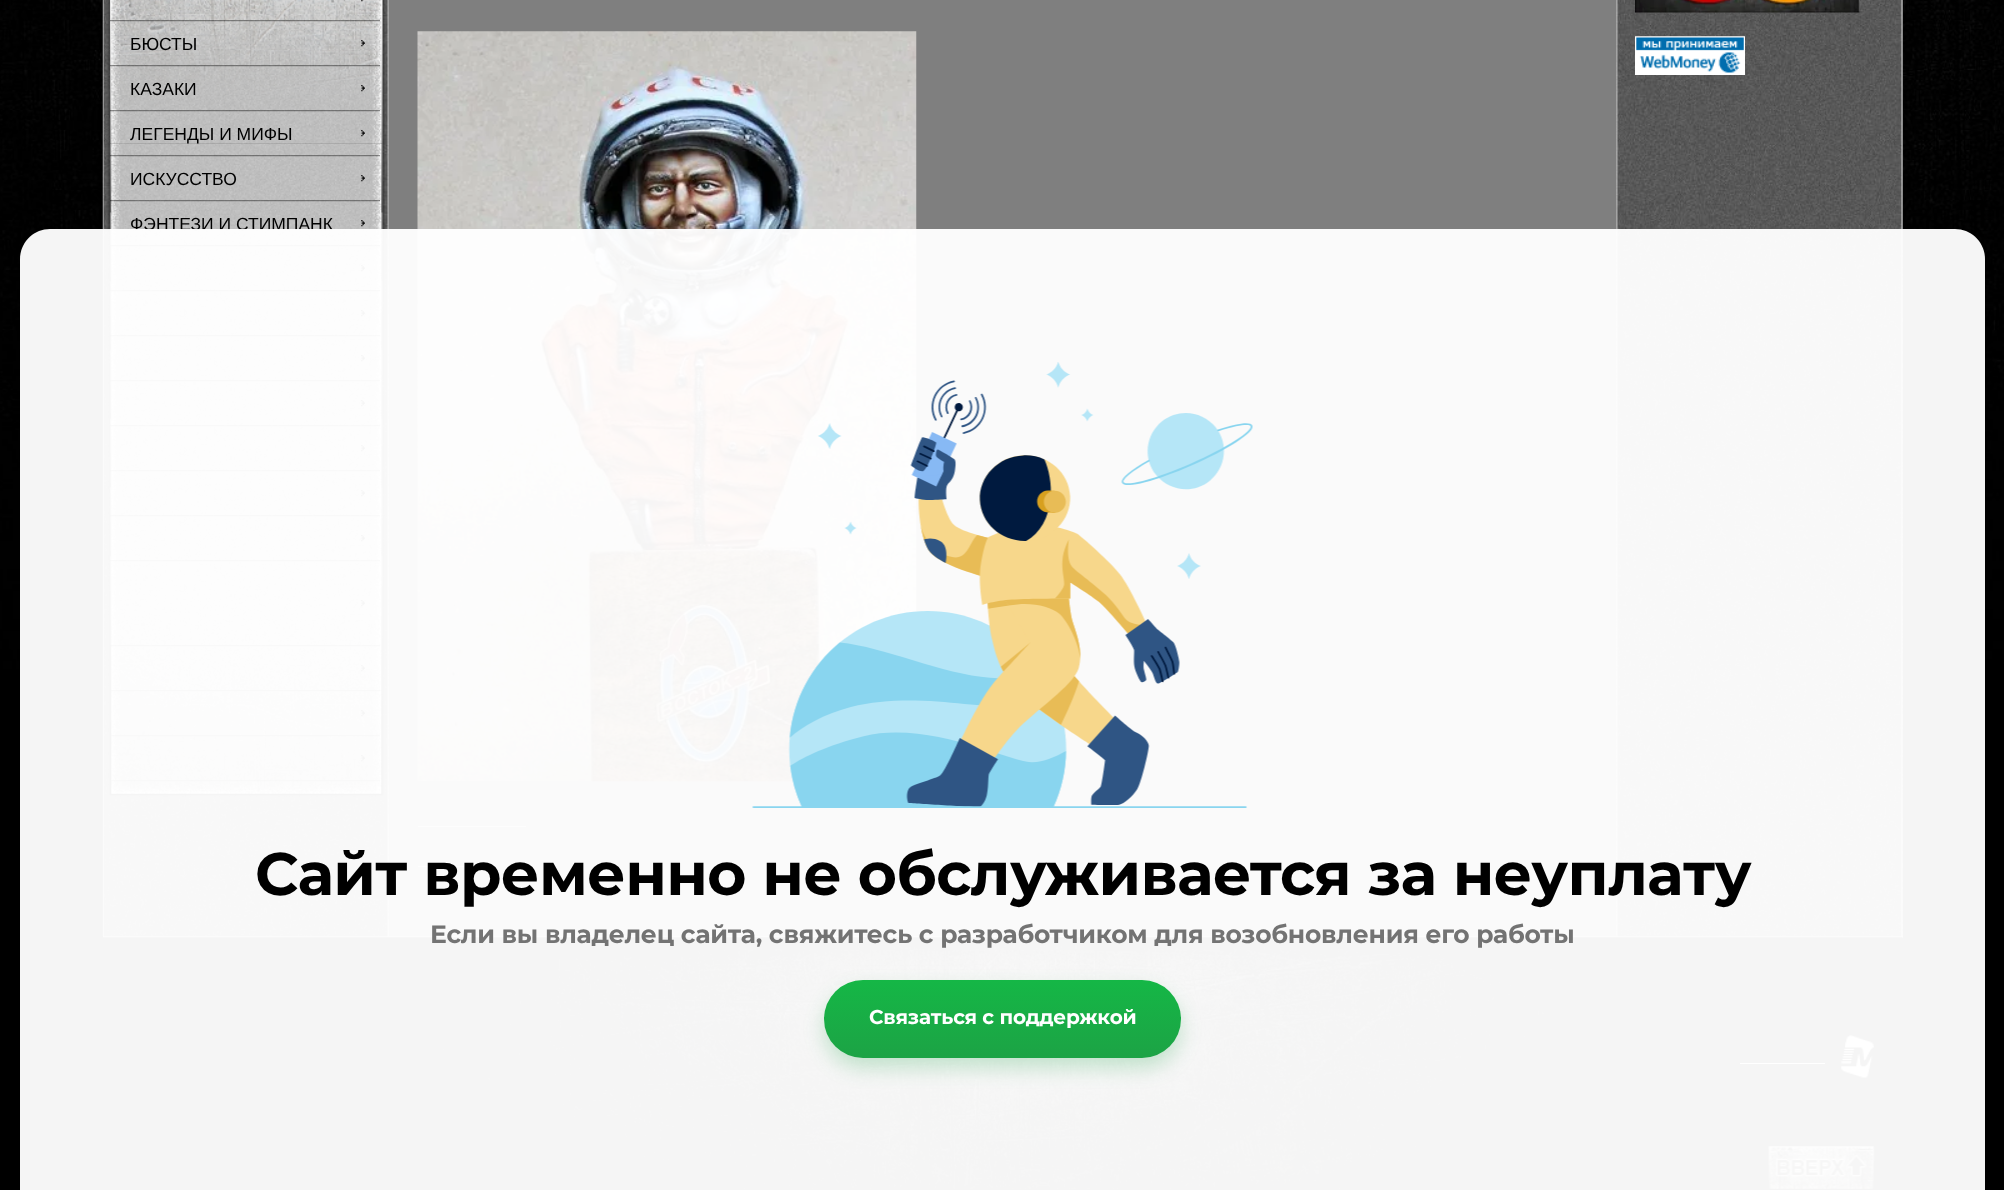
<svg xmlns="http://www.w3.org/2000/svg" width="2004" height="1190">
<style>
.a{font:17.5px Liberation Sans;fill:#000}
.b{font:bold 60px Montserrat;letter-spacing:-0.6px;fill:#000}
.c{font:bold 25px Montserrat;letter-spacing:-0.25px;fill:#737373}
.d{font:bold 20px Montserrat;letter-spacing:-0.2px;fill:#fff}
</style>
<defs>
<linearGradient id="g1" gradientUnits="userSpaceOnUse" x1="1003" y1="980" x2="1003" y2="1058"><stop offset="0" stop-color="#15b746"/><stop offset="1" stop-color="#1ca345"/></linearGradient>
</defs>
<rect width="100%" height="100%" fill="#000"/>
<image href="1.png" x="0" y="0" width="2004" height="670"/>
<path fill="#7f7f7f" d="M103 0h1800v938H103z"/>
<path fill="#b0b0b0" d="M103 936h1800v1H103z"/>
<image href="2.png" x="102" y="0" width="287" height="937"/>
<image href="3.png" x="107" y="0" width="278" height="144"/>
<image href="4.png" x="107" y="620" width="278" height="178"/>
<image href="5.png" x="110" y="20" width="270" height="2"/>
<image href="6.png" x="361" y="0" width="3" height="2"/>
<image href="7.png" x="110" y="65" width="270" height="2"/>
<image href="8.png" x="361" y="40" width="4" height="7"/>
<image href="9.png" x="110" y="110" width="270" height="2"/>
<image href="10.png" x="361" y="85" width="4" height="7"/>
<image href="39.png" x="107" y="143" width="278" height="477"/>
<image href="11.png" x="110" y="155" width="270" height="2"/>
<image href="12.png" x="361" y="130" width="4" height="7"/>
<image href="13.png" x="110" y="200" width="270" height="2"/>
<image href="14.png" x="361" y="175" width="4" height="7"/>
<image href="15.png" x="110" y="245" width="270" height="2"/>
<image href="16.png" x="361" y="220" width="4" height="7"/>
<image href="17.png" x="110" y="290" width="270" height="2"/>
<image href="18.png" x="361" y="265" width="4" height="7"/>
<image href="19.png" x="110" y="335" width="270" height="2"/>
<image href="20.png" x="361" y="310" width="4" height="7"/>
<image href="21.png" x="110" y="380" width="270" height="2"/>
<image href="22.png" x="361" y="355" width="4" height="7"/>
<image href="23.png" x="110" y="425" width="270" height="2"/>
<image href="24.png" x="361" y="400" width="4" height="7"/>
<image href="25.png" x="110" y="470" width="270" height="2"/>
<image href="26.png" x="361" y="445" width="4" height="7"/>
<image href="27.png" x="110" y="515" width="270" height="2"/>
<image href="28.png" x="361" y="490" width="4" height="7"/>
<image href="29.png" x="110" y="560" width="270" height="2"/>
<image href="30.png" x="361" y="535" width="4" height="7"/>
<image href="31.png" x="110" y="645" width="270" height="2"/>
<image href="32.png" x="361" y="600" width="4" height="7"/>
<image href="33.png" x="110" y="690" width="270" height="2"/>
<image href="34.png" x="361" y="665" width="4" height="7"/>
<image href="35.png" x="110" y="735" width="270" height="2"/>
<image href="36.png" x="361" y="710" width="4" height="7"/>
<image href="37.png" x="111" y="780" width="269" height="2"/>
<image href="38.png" x="361" y="755" width="4" height="7"/>
<image href="40.png" x="417" y="31" width="500" height="751"/>
<path fill="#c0c0c0" d="M418 826h108v1H418z"/>
<path fill="#c0c0c0" d="M418 866h65v1H418z"/>
<image href="43.png" x="1616" y="0" width="287" height="937"/>
<image href="41.png" x="1635" y="0" width="225" height="13"/>
<image href="42.png" x="1635" y="36" width="110" height="39"/>
<image href="45.png" x="103" y="937" width="1800" height="252"/>
<image href="46.png" x="1841" y="1035" width="33" height="43"/>
<path fill="#fff" d="M1740 1063h85v1H1740z"/>
<image href="47.png" x="1768" y="1146" width="107" height="43"/>
<text class="a" x="130" y="50">БЮСТЫ</text>
<text class="a" x="130" y="95">КАЗАКИ</text>
<text class="a" x="130" y="140">ЛЕГЕНДЫ И МИФЫ</text>
<text class="a" x="130" y="185">ИСКУССТВО</text>
<text class="a" x="130" y="230">ФЭНТЕЗИ И СТИМПАНК</text>
<path fill="#fffffff5" d="M50 229h1905c16.5 0 30 13.5 30 30v931h-1965v-931c0-16.5 13.5-30 30-30z"/>
<image href="44.png" x="752" y="362" width="501" height="446"/>
<text class="b" x="255" y="895">Сайт временно не обслуживается за неуплату</text>
<text class="c" x="430" y="943">Если вы владелец сайта, свяжитесь с разработчиком для возобновления его работы</text>
<rect fill="#1ca3453d" filter="blur(10px)" x="824" y="990" width="357" height="78" rx="39"/>
<rect fill="url(#g1)" x="824" y="980" width="357" height="78" rx="39"/>
<text class="d" x="869" y="1024">Связаться с поддержкой</text>
</svg>
